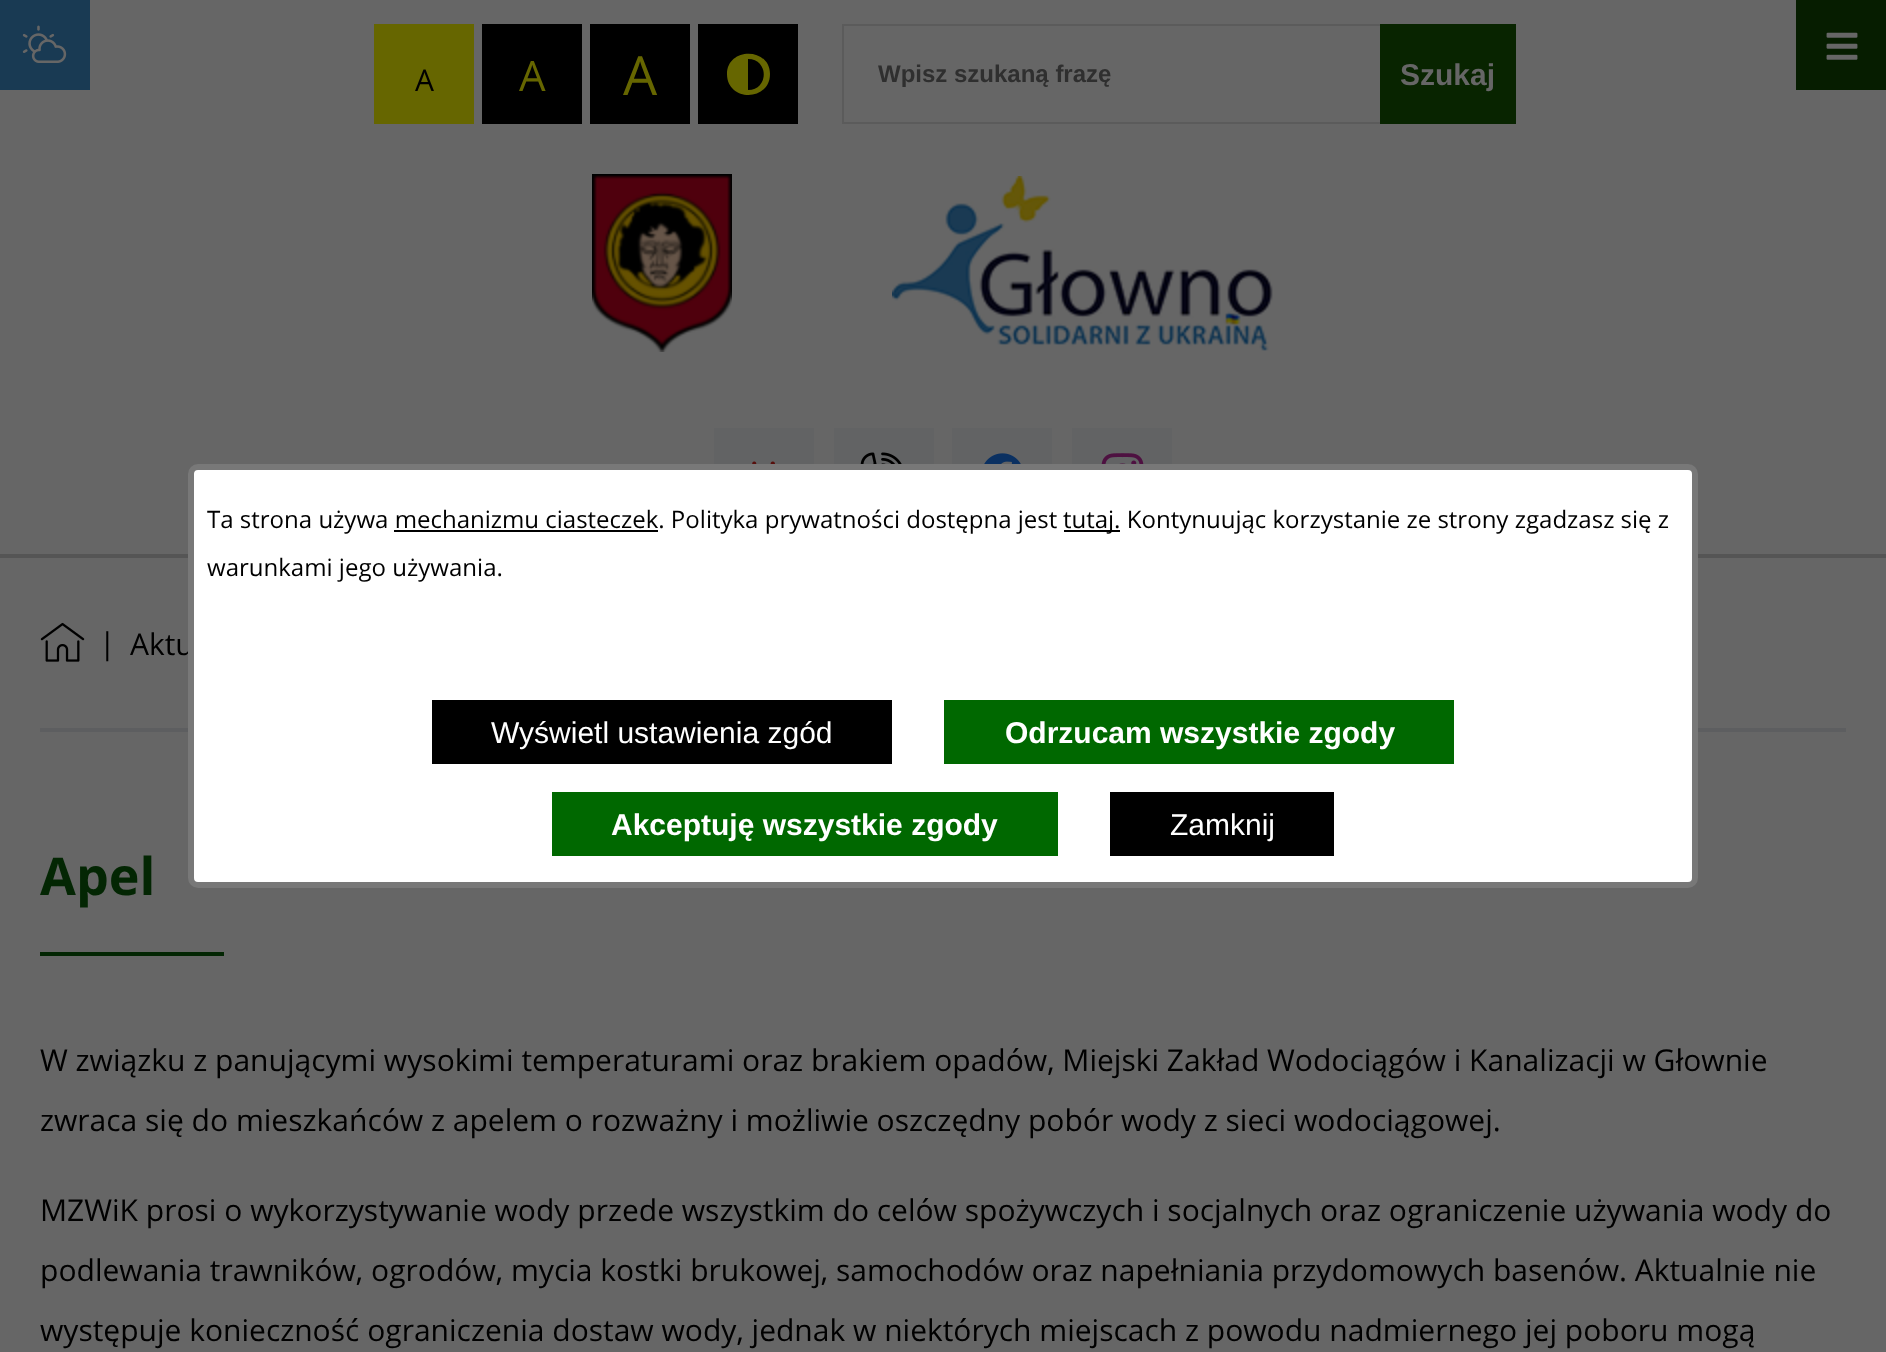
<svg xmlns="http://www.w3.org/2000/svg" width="1886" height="1352">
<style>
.a{font:30px Open Sans;fill:#000}
.b{font:42px Open Sans;fill:#660}
.c{font:54px Open Sans;fill:#660}
.d{font:bold 24px Liberation Sans;fill:#2f2f2f}
.e{font:bold 30px Liberation Sans;fill:#666}
.f{font:bold 52px Open Sans;fill:#032603}
.g{font:24px Open Sans;fill:#000}
.h{font:30px Liberation Sans;fill:#fff}
.i{font:bold 30px Liberation Sans;fill:#fff}
</style>
<rect width="100%" height="100%" fill="#666"/>
<path fill="#555" d="M0 554h1886v4H0z"/>
<path fill="#061d00" d="M1796 0h90v90H1796z"/>
<image href="1.png" x="1826" y="32" width="32" height="28"/>
<path fill="#193a53" d="M0 0h90v90H0z"/>
<image href="2.png" x="22" y="25" width="45" height="38"/>
<image href="3.png" x="592" y="174" width="140" height="178"/>
<image href="4.png" x="892" y="176" width="381" height="175"/>
<path fill="#626364" d="M714 428h100v36H714z"/>
<image href="5.png" x="752" y="461" width="23" height="3"/>
<path fill="#626364" d="M834 428h100v36H834z"/>
<image href="6.png" x="860" y="452" width="42" height="12"/>
<path fill="#626364" d="M952 428h100v36H952z"/>
<image href="7.png" x="984" y="453" width="37" height="11"/>
<path fill="#626364" d="M1072 428h100v36H1072z"/>
<image href="8.png" x="1101" y="453" width="43" height="11"/>
<path fill="#660" d="M374 24h100v100H374z"/>
<path fill="#000" d="M482 24h100v100H482z"/>
<path fill="#000" d="M590 24h100v100H590z"/>
<path fill="#000" d="M698 24h100v100H698z"/>
<path fill="#660" d="M727 74c0 28 43 28 43 0c0-27-43-27-43 0zm21 16v-31c21 0 21 31 0 31z"/>
<path fill="#5b5b5b" d="M842 24h538v2H842z"/>
<path fill="#5b5b5b" d="M842 122h538v2H842z"/>
<path fill="#5b5b5b" d="M842 24h2v100H842z"/>
<path fill="#082400" d="M1380 24h136v100H1380z"/>
<path fill="#5d5e60" d="M40 728h1806v4H40z"/>
<image href="9.png" x="40" y="622" width="45" height="40"/>
<path fill="#032603" d="M40 952h184v4H40z"/>
<text class="a" x="415" y="91">A</text>
<text class="b" x="519" y="91">A</text>
<text class="c" x="623" y="95">A</text>
<text class="d" x="878" y="82">Wpisz szukaną frazę</text>
<text class="e" x="1400" y="85">Szukaj</text>
<text class="a" x="99" y="654">|</text>
<text class="a" x="130" y="655">Aktu</text>
<text class="f" x="40" y="895">Apel</text>
<text class="a" x="40" y="1071">W związku z panującymi wysokimi temperaturami oraz brakiem opadów, Miejski Zakład Wodociągów i Kanalizacji w Głownie</text>
<text class="a" x="40" y="1131">zwraca się do mieszkańców z apelem o rozważny i możliwie oszczędny pobór wody z sieci wodociągowej.</text>
<text class="a" x="40" y="1221">MZWiK prosi o wykorzystywanie wody przede wszystkim do celów spożywczych i socjalnych oraz ograniczenie używania wody do</text>
<text class="a" x="40" y="1281">podlewania trawników, ogrodów, mycia kostki brukowej, samochodów oraz napełniania przydomowych basenów. Aktualnie nie</text>
<text class="a" x="40" y="1341">występuje konieczność ograniczenia dostaw wody, jednak w niektórych miejscach z powodu nadmiernego jej poboru mogą</text>
<rect fill="#fff" stroke="#787878" stroke-width="6" x="191" y="467" width="1504" height="418" rx="7"/>
<text class="g" x="207" y="528">Ta strona używa mechanizmu ciasteczek. Polityka prywatności dostępna jest</text>
<path fill="#000" d="M1064 530h56v2H1064z"/>
<text class="g" x="1063" y="528">tutaj. Kontynuując korzystanie ze strony zgadzasz się z</text>
<path fill="#000" d="M394 530h264v2H394z"/>
<text class="g" x="207" y="576">warunkami jego używania.</text>
<path fill="#000" d="M432 700h460v64H432z"/>
<text class="h" x="491" y="743">Wyświetl ustawienia zgód</text>
<path fill="#006800" d="M944 700h510v64H944z"/>
<text class="i" x="1005" y="743">Odrzucam wszystkie zgody</text>
<path fill="#006800" d="M552 792h506v64H552z"/>
<text class="i" x="611" y="835">Akceptuję wszystkie zgody</text>
<path fill="#000" d="M1110 792h224v64H1110z"/>
<text class="h" x="1170" y="835">Zamknij</text>
</svg>
